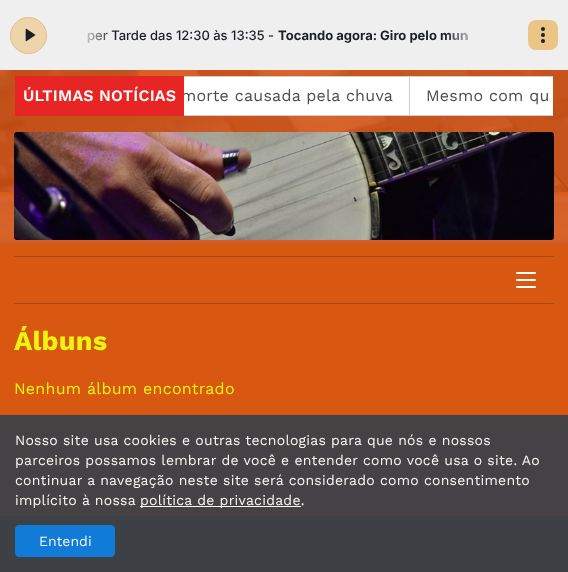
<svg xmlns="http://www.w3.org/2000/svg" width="568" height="572">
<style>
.a{font:500 13px Inter;fill:#1b1f25}
.b{font:bold 13px Inter;fill:#1b1f25}
.c{font:16px Work Sans;letter-spacing:0.25px;fill:#4d4d4d}
.d{font:600 16px Work Sans;letter-spacing:0.25px;fill:#fff}
.e{font:bold 27px Work Sans;letter-spacing:0.25px;fill:#edf50e}
.f{font:16px Work Sans;letter-spacing:0.25px;fill:#edf50e}
.g{font:14px Work Sans;letter-spacing:0.25px;fill:#fdf7f3}
.h{font:14px Work Sans;fill:#f6f4f4}
</style>
<defs>
<linearGradient id="g1" gradientUnits="userSpaceOnUse" x1="71" y1="35" x2="113" y2="35"><stop offset="0.2" stop-color="#efefef"/><stop offset="1" stop-color="#efefef" stop-opacity="0"/></linearGradient>
<linearGradient id="g2" gradientUnits="userSpaceOnUse" x1="487" y1="35" x2="445" y2="35"><stop offset="0.2" stop-color="#efefef"/><stop offset="1" stop-color="#efefef" stop-opacity="0"/></linearGradient>
</defs>
<rect width="100%" height="100%" fill="#d45313"/>
<path fill="#efefef" d="M0 0h568v70H0z"/>
<circle fill="#eed4a9" stroke="#e0bf88" cx="28.5" cy="35.5" r="18"/>
<image href="1.png" x="25" y="28" width="11" height="14"/>
<rect fill="#ebc585" x="528" y="20" width="30" height="30" rx="8"/>
<circle fill="#1b1f25" cx="543" cy="41" r="2"/>
<circle fill="#1b1f25" cx="543" cy="35" r="2"/>
<circle fill="#1b1f25" cx="543" cy="29" r="2"/>
<image href="3.png" x="0" y="70" width="568" height="446"/>
<path fill="#fff" d="M184 77h369v38H184z"/>
<path fill="#ceced0" d="M184 76h369v1H184z"/>
<path fill="#ceced0" d="M184 115h369v1H184z"/>
<path fill="#ceced0" d="M409 77h1v38H409z"/>
<rect fill="#0000001a" x="14" y="132" width="540" height="108" rx="2"/>
<image href="2.png" x="14" y="132" width="540" height="108"/>
<path fill="#ad460e" d="M14 256h540v1H14z"/>
<path fill="#ad460e" d="M14 303h540v1H14z"/>
<rect fill="#fff" x="516" y="279" width="20" height="2" rx="1"/>
<rect fill="#fff" x="516" y="272" width="20" height="2" rx="1"/>
<rect fill="#fff" x="516" y="286" width="20" height="2" rx="1"/>
<path fill="#522c19" d="M0 516h568v56H0z"/>
<path fill="#3c4148f2" d="M0 415h568v157H0z"/>
<path fill="#fdf7f3" d="M140 506h161v1H140z"/>
<rect fill="#117bd8" stroke="#117bd8" x="15.5" y="525.5" width="99" height="31" rx="3.5"/>
<text class="a" x="87" y="40">per Tarde das 12:30 às 13:35 -</text>
<text class="b" x="278" y="40">Tocando agora: Giro pelo mun</text>
<path fill="url(#g1)" d="M88 32h20v11H88z"/>
<path fill="url(#g2)" d="M446 32h21v9H446z"/>
<text class="c" x="181" y="101">morte causada pela chuva</text>
<path fill="#e72525" d="M15 76h169v40H15z"/>
<text class="d" x="23" y="101">ÚLTIMAS NOTÍCIAS</text>
<text class="c" x="426" y="101">Mesmo com qu</text>
<text class="e" x="14" y="350">Álbuns</text>
<text class="f" x="14" y="394">Nenhum álbum encontrado</text>
<text class="g" x="15" y="445">Nosso site usa cookies e outras tecnologias para que nós e nossos</text>
<text class="g" x="15" y="465">parceiros possamos lembrar de você e entender como você usa o site. Ao</text>
<text class="g" x="15" y="485">continuar a navegação neste site será considerado como consentimento</text>
<text class="g" x="15" y="505">implícito à nossa</text>
<text class="g" x="140" y="505">política de privacidade.</text>
<text class="h" x="39" y="546">Entendi</text>
</svg>
